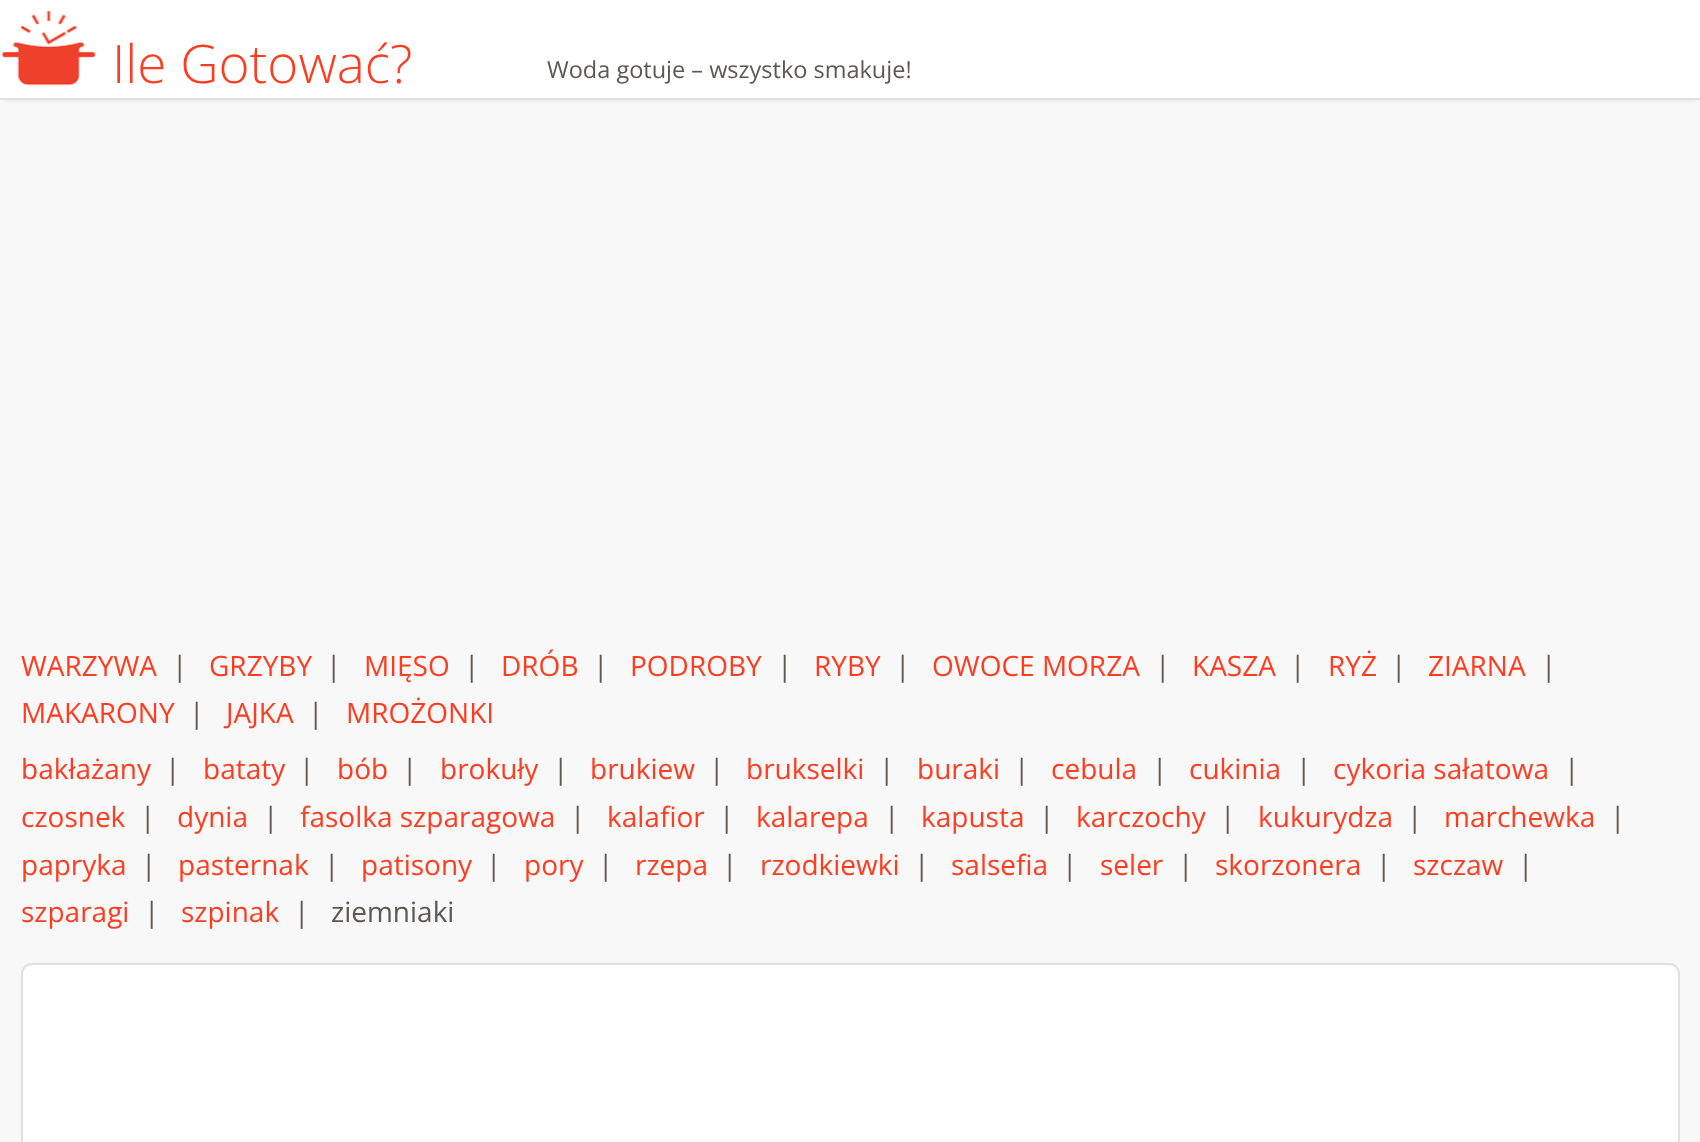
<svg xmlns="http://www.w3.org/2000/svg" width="1700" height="1142">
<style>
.a{font:300 53px Open Sans;fill:#ff3c1f}
.b{font:23.5px Open Sans;fill:#5d5853}
.c{font:28px Open Sans;fill:#ff3c1f}
.d{font:28px Open Sans;fill:#5d5853}
</style>
<rect width="100%" height="100%" fill="#f8f8f8"/>
<path fill="#0000001a" filter="blur(2.5px)" d="M5 11h1691v89H5z"/>
<path fill="#fff" d="M0 0h1700v98H0z"/>
<path fill="#e0e0e0" d="M0 98h1700v2H0z"/>
<image href="1.png" x="1" y="10" width="95" height="76"/>
<rect fill="#fff" stroke="#e0e0e0" stroke-width="2" x="22" y="964" width="1657" height="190" rx="10"/>
<text class="a" x="112" y="83">Ile Gotować?</text>
<text class="b" x="547" y="78">Woda gotuje – wszystko smakuje!</text>
<text class="c" x="21" y="676">WARZYWA</text>
<text class="d" x="172" y="676">|</text>
<text class="c" x="209" y="676">GRZYBY</text>
<text class="d" x="326" y="676">|</text>
<text class="c" x="364" y="676">MIĘSO</text>
<text class="d" x="464" y="676">|</text>
<text class="c" x="501" y="676">DRÓB</text>
<text class="d" x="593" y="676">|</text>
<text class="c" x="630" y="676">PODROBY</text>
<text class="d" x="777" y="676">|</text>
<text class="c" x="814" y="676">RYBY</text>
<text class="d" x="895" y="676">|</text>
<text class="c" x="932" y="676">OWOCE MORZA</text>
<text class="d" x="1155" y="676">|</text>
<text class="c" x="1192" y="676">KASZA</text>
<text class="d" x="1290" y="676">|</text>
<text class="c" x="1328" y="676">RYŻ</text>
<text class="d" x="1391" y="676">|</text>
<text class="c" x="1428" y="676">ZIARNA</text>
<text class="d" x="1541" y="676">|</text>
<text class="c" x="21" y="723">MAKARONY</text>
<text class="d" x="189" y="723">|</text>
<text class="c" x="226" y="723">JAJKA</text>
<text class="d" x="308" y="723">|</text>
<text class="c" x="346" y="723">MROŻONKI</text>
<text class="c" x="21" y="779">bakłażany</text>
<text class="d" x="165" y="779">|</text>
<text class="c" x="203" y="779">bataty</text>
<text class="d" x="299" y="779">|</text>
<text class="c" x="337" y="779">bób</text>
<text class="d" x="402" y="779">|</text>
<text class="c" x="440" y="779">brokuły</text>
<text class="d" x="553" y="779">|</text>
<text class="c" x="590" y="779">brukiew</text>
<text class="d" x="709" y="779">|</text>
<text class="c" x="746" y="779">brukselki</text>
<text class="d" x="879" y="779">|</text>
<text class="c" x="917" y="779">buraki</text>
<text class="d" x="1014" y="779">|</text>
<text class="c" x="1051" y="779">cebula</text>
<text class="d" x="1152" y="779">|</text>
<text class="c" x="1189" y="779">cukinia</text>
<text class="d" x="1296" y="779">|</text>
<text class="c" x="1333" y="779">cykoria sałatowa</text>
<text class="d" x="1564" y="779">|</text>
<text class="c" x="21" y="827">czosnek</text>
<text class="d" x="140" y="827">|</text>
<text class="c" x="177" y="827">dynia</text>
<text class="d" x="263" y="827">|</text>
<text class="c" x="300" y="827">fasolka szparagowa</text>
<text class="d" x="570" y="827">|</text>
<text class="c" x="607" y="827">kalafior</text>
<text class="d" x="719" y="827">|</text>
<text class="c" x="756" y="827">kalarepa</text>
<text class="d" x="884" y="827">|</text>
<text class="c" x="921" y="827">kapusta</text>
<text class="d" x="1039" y="827">|</text>
<text class="c" x="1076" y="827">karczochy</text>
<text class="d" x="1220" y="827">|</text>
<text class="c" x="1258" y="827">kukurydza</text>
<text class="d" x="1407" y="827">|</text>
<text class="c" x="1444" y="827">marchewka</text>
<text class="d" x="1610" y="827">|</text>
<text class="c" x="21" y="875">papryka</text>
<text class="d" x="141" y="875">|</text>
<text class="c" x="178" y="875">pasternak</text>
<text class="d" x="324" y="875">|</text>
<text class="c" x="361" y="875">patisony</text>
<text class="d" x="486" y="875">|</text>
<text class="c" x="524" y="875">pory</text>
<text class="d" x="598" y="875">|</text>
<text class="c" x="635" y="875">rzepa</text>
<text class="d" x="722" y="875">|</text>
<text class="c" x="760" y="875">rzodkiewki</text>
<text class="d" x="914" y="875">|</text>
<text class="c" x="951" y="875">salsefia</text>
<text class="d" x="1062" y="875">|</text>
<text class="c" x="1100" y="875">seler</text>
<text class="d" x="1178" y="875">|</text>
<text class="c" x="1215" y="875">skorzonera</text>
<text class="d" x="1376" y="875">|</text>
<text class="c" x="1413" y="875">szczaw</text>
<text class="d" x="1518" y="875">|</text>
<text class="c" x="21" y="922">szparagi</text>
<text class="d" x="144" y="922">|</text>
<text class="c" x="181" y="922">szpinak</text>
<text class="d" x="294" y="922">|</text>
<text class="d" x="331" y="922">ziemniaki</text>
</svg>
